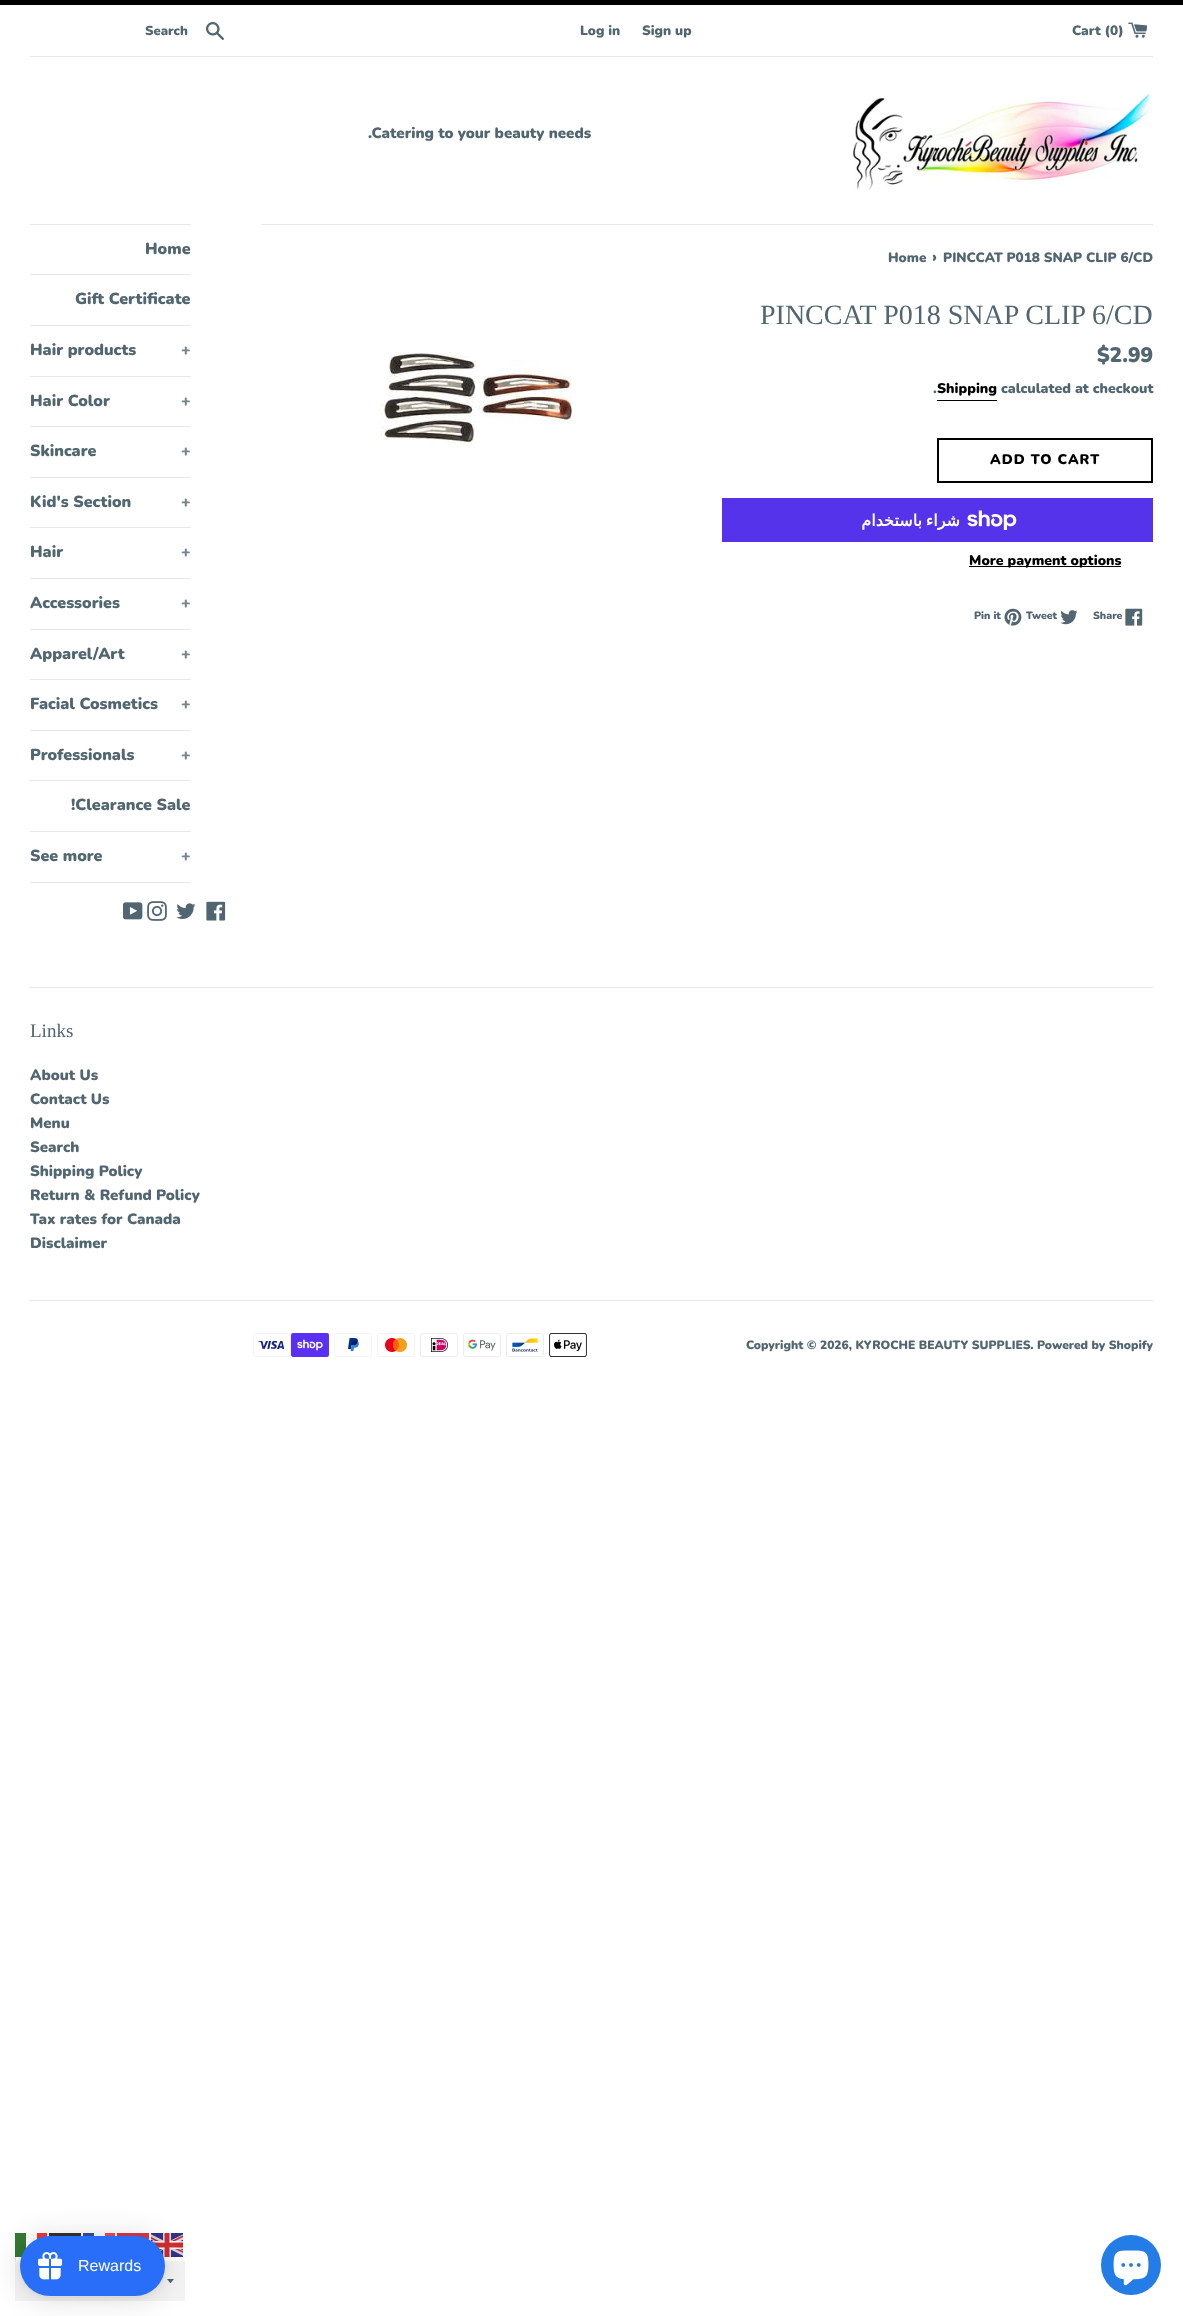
<svg xmlns="http://www.w3.org/2000/svg" width="1183" height="2316">
<style>
.a{font:900 13px Nunito;fill:#516670}
.b{font:900 13.5px Nunito;fill:#516670}
.c{font:900 15px Nunito;fill:#516670}
.d{font:900 16px Nunito;fill:#516670}
.e{font:900 16px Nunito;fill:#74858d}
.f{font:28px Liberation Serif;fill:#516670}
.g{font:900 21px Nunito;fill:#516670}
.h{font:900 14px Nunito;fill:#516670}
.i{font:900 14px Nunito;fill:#000}
.j{font:900 14px Nunito;letter-spacing:1px;fill:#000}
.k{font:bold 16px DejaVu Sans;direction:rtl;fill:#fff}
.l{font:900 10.5px Nunito;fill:#516670}
.m{font:19px Liberation Serif;fill:#516670}
.n{font:900 12px Nunito;fill:#516670}
.o{font:16px Liberation Sans;fill:#fff}
</style>
<rect width="100%" height="100%" fill="#fff"/>
<path fill="#000" d="M0 0h1183v5H0z"/>
<image href="1.png" x="206" y="22" width="18" height="18"/>
<image href="2.png" x="1128" y="22" width="20" height="16"/>
<path fill="#e8e8e8" d="M30 56h1123v1H30z"/>
<image href="3.png" x="853" y="93" width="300" height="97"/>
<path fill="#e8e8e8" d="M30 224h161v1H30z"/>
<path fill="#e8e8e8" d="M30 274h161v1H30z"/>
<path fill="#e8e8e8" d="M30 325h161v1H30z"/>
<path fill="#e8e8e8" d="M30 376h161v1H30z"/>
<path fill="#e8e8e8" d="M30 426h161v1H30z"/>
<path fill="#e8e8e8" d="M30 477h161v1H30z"/>
<path fill="#e8e8e8" d="M30 527h161v1H30z"/>
<path fill="#e8e8e8" d="M30 578h161v1H30z"/>
<path fill="#e8e8e8" d="M30 629h161v1H30z"/>
<path fill="#e8e8e8" d="M30 679h161v1H30z"/>
<path fill="#e8e8e8" d="M30 730h161v1H30z"/>
<path fill="#e8e8e8" d="M30 780h161v1H30z"/>
<path fill="#e8e8e8" d="M30 831h161v1H30z"/>
<path fill="#e8e8e8" d="M30 882h161v1H30z"/>
<image href="4.png" x="123" y="902" width="20" height="18"/>
<image href="5.png" x="147" y="901" width="20" height="20"/>
<image href="6.png" x="176" y="903" width="20" height="16"/>
<image href="7.png" x="206" y="901" width="20" height="20"/>
<path fill="#e8e8e8" d="M261 224h892v1H261z"/>
<image href="8.png" x="380" y="352" width="193" height="96"/>
<path fill="#000" d="M937 400h60v1H937z"/>
<path fill="none" stroke="#000" stroke-width="2" d="M938 439h214v43H938z"/>
<path fill="#5433eb" d="M722 498h431v44H722z"/>
<image href="9.png" x="967" y="510" width="50" height="20"/>
<path fill="#000" d="M969 566h152v1H969z"/>
<image href="10.png" x="1004" y="608" width="18" height="18"/>
<image href="11.png" x="1060" y="610" width="18" height="15"/>
<image href="12.png" x="1125" y="608" width="18" height="18"/>
<path fill="#e8e8e8" d="M30 987h1123v1H30z"/>
<path fill="#e8e8e8" d="M30 1300h1123v1H30z"/>
<image href="13.png" x="253" y="1333" width="38" height="24"/>
<image href="14.png" x="291" y="1333" width="38" height="24"/>
<image href="15.png" x="334" y="1333" width="38" height="24"/>
<image href="16.png" x="377" y="1333" width="38" height="24"/>
<image href="17.png" x="420" y="1333" width="38" height="24"/>
<image href="18.png" x="463" y="1333" width="38" height="24"/>
<image href="19.png" x="506" y="1333" width="38" height="24"/>
<image href="20.png" x="549" y="1333" width="38" height="24"/>
<path fill="none" stroke="#e0e0e0" d="M15.5 2248.5h144v43H15.5z"/>
<path fill="#ffffffcc" d="M15 2248h32v9H15z"/>
<path fill="#005700cc" d="M15 2233h11v24H15z"/>
<path fill="#fc0000cc" d="M37 2233h10v6H37z"/>
<path fill="#333" d="M49 2233h32v4H49z"/>
<path fill="#00267fcc" d="M83 2233h11v3H83z"/>
<path fill="#f31830cc" d="M105 2233h10v3H105z"/>
<image href="21.png" x="117" y="2233" width="32" height="7"/>
<image href="22.png" x="151" y="2233" width="32" height="24"/>
<path fill="#f4f4f4" d="M15 2261h170v40H15z"/>
<path fill="#516670" d="M167 2279c4.5 5.5 2.5 5.5 7 0z"/>
<circle fill="#247ce7" cx="1131" cy="2265" r="30"/>
<image href="23.png" x="1113" y="2250" width="36" height="36"/>
<rect fill="#00000026" filter="blur(15px)" x="20" y="2238" width="145" height="60" rx="30"/>
<rect fill="#0000000d" filter="blur(3px)" x="20" y="2237" width="145" height="60" rx="30"/>
<rect fill="#286ef8" x="20" y="2236" width="145" height="60" rx="30"/>
<image href="24.png" x="38" y="2252" width="24" height="28"/>
<text class="a" x="145" y="35">Search</text>
<text class="b" x="580" y="35">Log in</text>
<text class="b" x="642" y="35">Sign up</text>
<text class="b" x="1072" y="35">Cart (0)</text>
<text class="c" x="368" y="138">.Catering to your beauty needs</text>
<text class="d" x="145" y="254">Home</text>
<text class="d" x="75" y="304">Gift Certificate</text>
<text class="d" x="30" y="355">Hair products</text>
<text class="e" x="181" y="355">+</text>
<text class="d" x="30" y="406">Hair Color</text>
<text class="e" x="181" y="406">+</text>
<text class="d" x="30" y="456">Skincare</text>
<text class="e" x="181" y="456">+</text>
<text class="d" x="30" y="507">Kid's Section</text>
<text class="e" x="181" y="507">+</text>
<text class="d" x="30" y="557">Hair</text>
<text class="e" x="181" y="557">+</text>
<text class="d" x="30" y="608">Accessories</text>
<text class="e" x="181" y="608">+</text>
<text class="d" x="30" y="659">Apparel/Art</text>
<text class="e" x="181" y="659">+</text>
<text class="d" x="30" y="709">Facial Cosmetics</text>
<text class="e" x="181" y="709">+</text>
<text class="d" x="30" y="760">Professionals</text>
<text class="e" x="181" y="760">+</text>
<text class="d" x="71" y="810">!Clearance Sale</text>
<text class="d" x="30" y="861">See more</text>
<text class="e" x="181" y="861">+</text>
<text class="b" x="888" y="262">Home</text>
<text class="d" x="932" y="262">›</text>
<text class="b" x="943" y="262">PINCCAT P018 SNAP CLIP 6/CD</text>
<text class="f" x="760" y="324">PINCCAT P018 SNAP CLIP 6/CD</text>
<text class="g" x="1097" y="362">$2.99</text>
<text class="h" x="933" y="393">.</text>
<text class="i" x="937" y="393">Shipping</text>
<text class="h" x="1001" y="393">calculated at checkout</text>
<text class="j" x="990" y="464">ADD TO CART</text>
<text class="k" x="922" y="526">باستخدام</text>
<text class="k" x="960" y="526">شراء</text>
<text class="i" x="969" y="565">More payment options</text>
<text class="l" x="974" y="619">Pin it</text>
<text class="l" x="1026" y="619">Tweet</text>
<text class="l" x="1093" y="619">Share</text>
<text class="m" x="30" y="1037">Links</text>
<text class="c" x="30" y="1080">About Us</text>
<text class="c" x="30" y="1104">Contact Us</text>
<text class="c" x="30" y="1128">Menu</text>
<text class="c" x="30" y="1152">Search</text>
<text class="c" x="30" y="1176">Shipping Policy</text>
<text class="c" x="30" y="1200">Return &amp; Refund Policy</text>
<text class="c" x="30" y="1224">Tax rates for Canada</text>
<text class="c" x="30" y="1248">Disclaimer</text>
<text class="n" x="746" y="1349">Copyright © 2026, KYROCHE BEAUTY SUPPLIES. Powered by Shopify</text>
<text class="o" x="78" y="2271">Rewards</text>
</svg>
